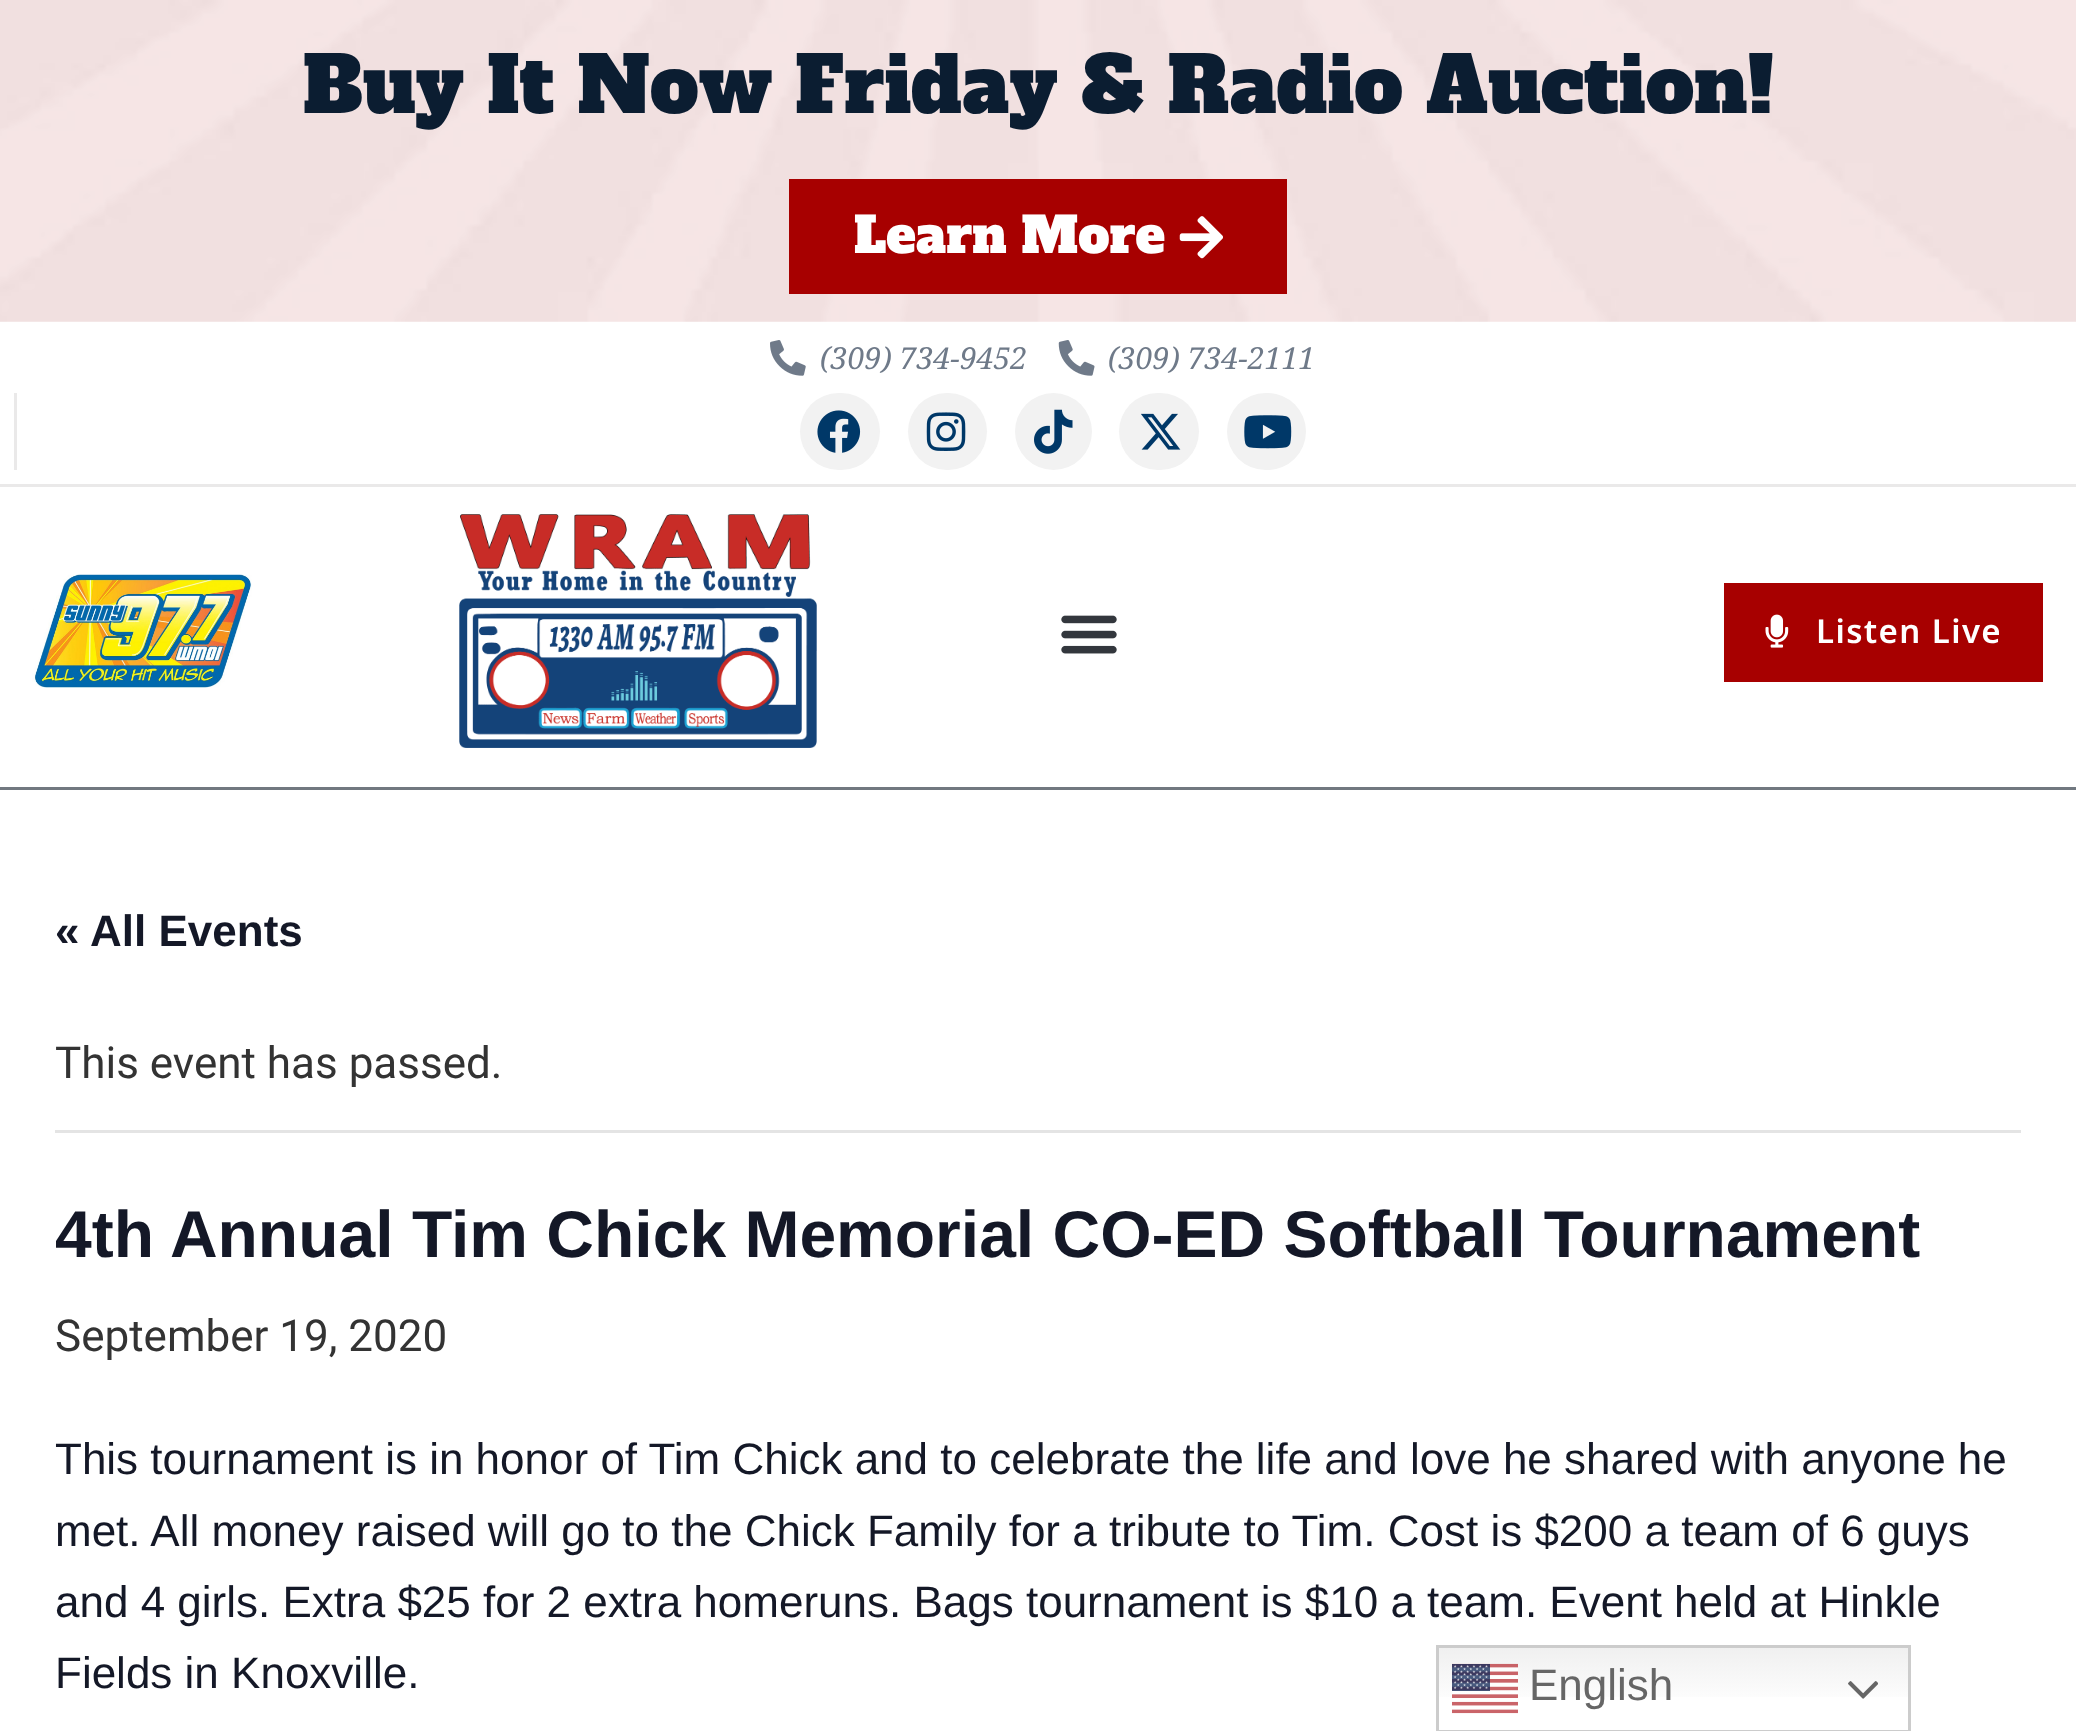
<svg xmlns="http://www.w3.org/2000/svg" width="2076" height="1731">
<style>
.a{font:77px Alfa Slab One;fill:#0b1d31}
.b{font:49.5px Alfa Slab One;fill:#fff}
.c{font:italic 30.25px Noto Serif;fill:#6f7a89}
.d{font:600 33px Noto Sans;letter-spacing:1.4px;fill:#fff}
.e{font:bold 44px Liberation Sans;fill:#141827}
.f{font:44px Roboto;fill:#333}
.g{font:bold 66px Liberation Sans;fill:#141827}
.h{font:44px Liberation Sans;fill:#141827}
.i{font:44px Liberation Sans;fill:#666}
</style>
<defs>
<linearGradient id="g1" gradientUnits="userSpaceOnUse" x1="1673" y1="1645" x2="1673" y2="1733"><stop offset="0" stop-color="#efefef"/><stop offset="0.7" stop-color="#fff"/></linearGradient>
</defs>
<rect width="100%" height="100%" fill="#fff"/>
<image href="1.png" x="0" y="0" width="2076" height="322"/>
<path fill="#a70000" d="M789 179h498v115H789z"/>
<image href="2.png" x="1179" y="216" width="44" height="43"/>
<path fill="#eae9e9" d="M0 484h2076v3H0z"/>
<image href="3.png" x="770" y="340" width="36" height="36"/>
<image href="4.png" x="1058" y="340" width="37" height="36"/>
<path fill="#eae9e9" d="M14 393h3v77H14z"/>
<rect fill="#f2f2f2" x="800" y="393" width="80" height="77" rx="38.5"/>
<image href="5.png" x="817" y="410" width="44" height="43"/>
<rect fill="#f2f2f2" x="908" y="393" width="79" height="77" rx="38.5"/>
<image href="6.png" x="926" y="412" width="40" height="39"/>
<circle fill="#f2f2f2" cx="1053.5" cy="431.5" r="38.5"/>
<image href="7.png" x="1034" y="409" width="39" height="45"/>
<rect fill="#f2f2f2" x="1119" y="393" width="80" height="77" rx="38.5"/>
<image href="8.png" x="1141" y="413" width="40" height="37"/>
<rect fill="#f2f2f2" x="1227" y="393" width="79" height="77" rx="38.5"/>
<image href="9.png" x="1244" y="415" width="48" height="34"/>
<path fill="#717880" d="M0 787h2076v3H0z"/>
<image href="10.png" x="32" y="574" width="220" height="114"/>
<image href="11.png" x="459" y="514" width="358" height="234"/>
<image href="12.png" x="1061" y="615" width="56" height="39"/>
<path fill="#a70000" d="M1724 583h319v99H1724z"/>
<image href="13.png" x="1765" y="614" width="24" height="34"/>
<path fill="#e4e4e4" d="M55 1130h1966v3H55z"/>
<path fill="url(#g1)" d="M1439 1648h469v49H1439z"/>
<path fill="none" stroke="#ccc" stroke-width="3" d="M1437.5 1646.5h472v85H1437.5z"/>
<image href="14.png" x="1452" y="1663" width="66" height="51"/>
<image href="15.png" x="1848" y="1681" width="30" height="18"/>
<text class="a" x="303" y="113">Buy It Now Friday &amp; Radio Auction!</text>
<text class="b" x="854" y="253">Learn More</text>
<text class="c" x="820" y="369">(309) 734-9452</text>
<text class="c" x="1108" y="369">(309) 734-2111</text>
<text class="d" x="1816" y="643">Listen Live</text>
<text class="e" x="55" y="946">« All Events</text>
<text class="f" x="55" y="1078">This event has passed.</text>
<text class="g" x="55" y="1257">4th Annual Tim Chick Memorial CO-ED Softball Tournament</text>
<text class="f" x="55" y="1351">September 19, 2020</text>
<text class="h" x="55" y="1474">This tournament is in honor of Tim Chick and to celebrate the life and love he shared with anyone he</text>
<text class="h" x="55" y="1546">met. All money raised will go to the Chick Family for a tribute to Tim. Cost is $200 a team of 6 guys</text>
<text class="h" x="55" y="1617">and 4 girls. Extra $25 for 2 extra homeruns. Bags tournament is $10 a team. Event held at Hinkle</text>
<text class="h" x="55" y="1688">Fields in Knoxville.</text>
<text class="i" x="1529" y="1700">English</text>
</svg>
